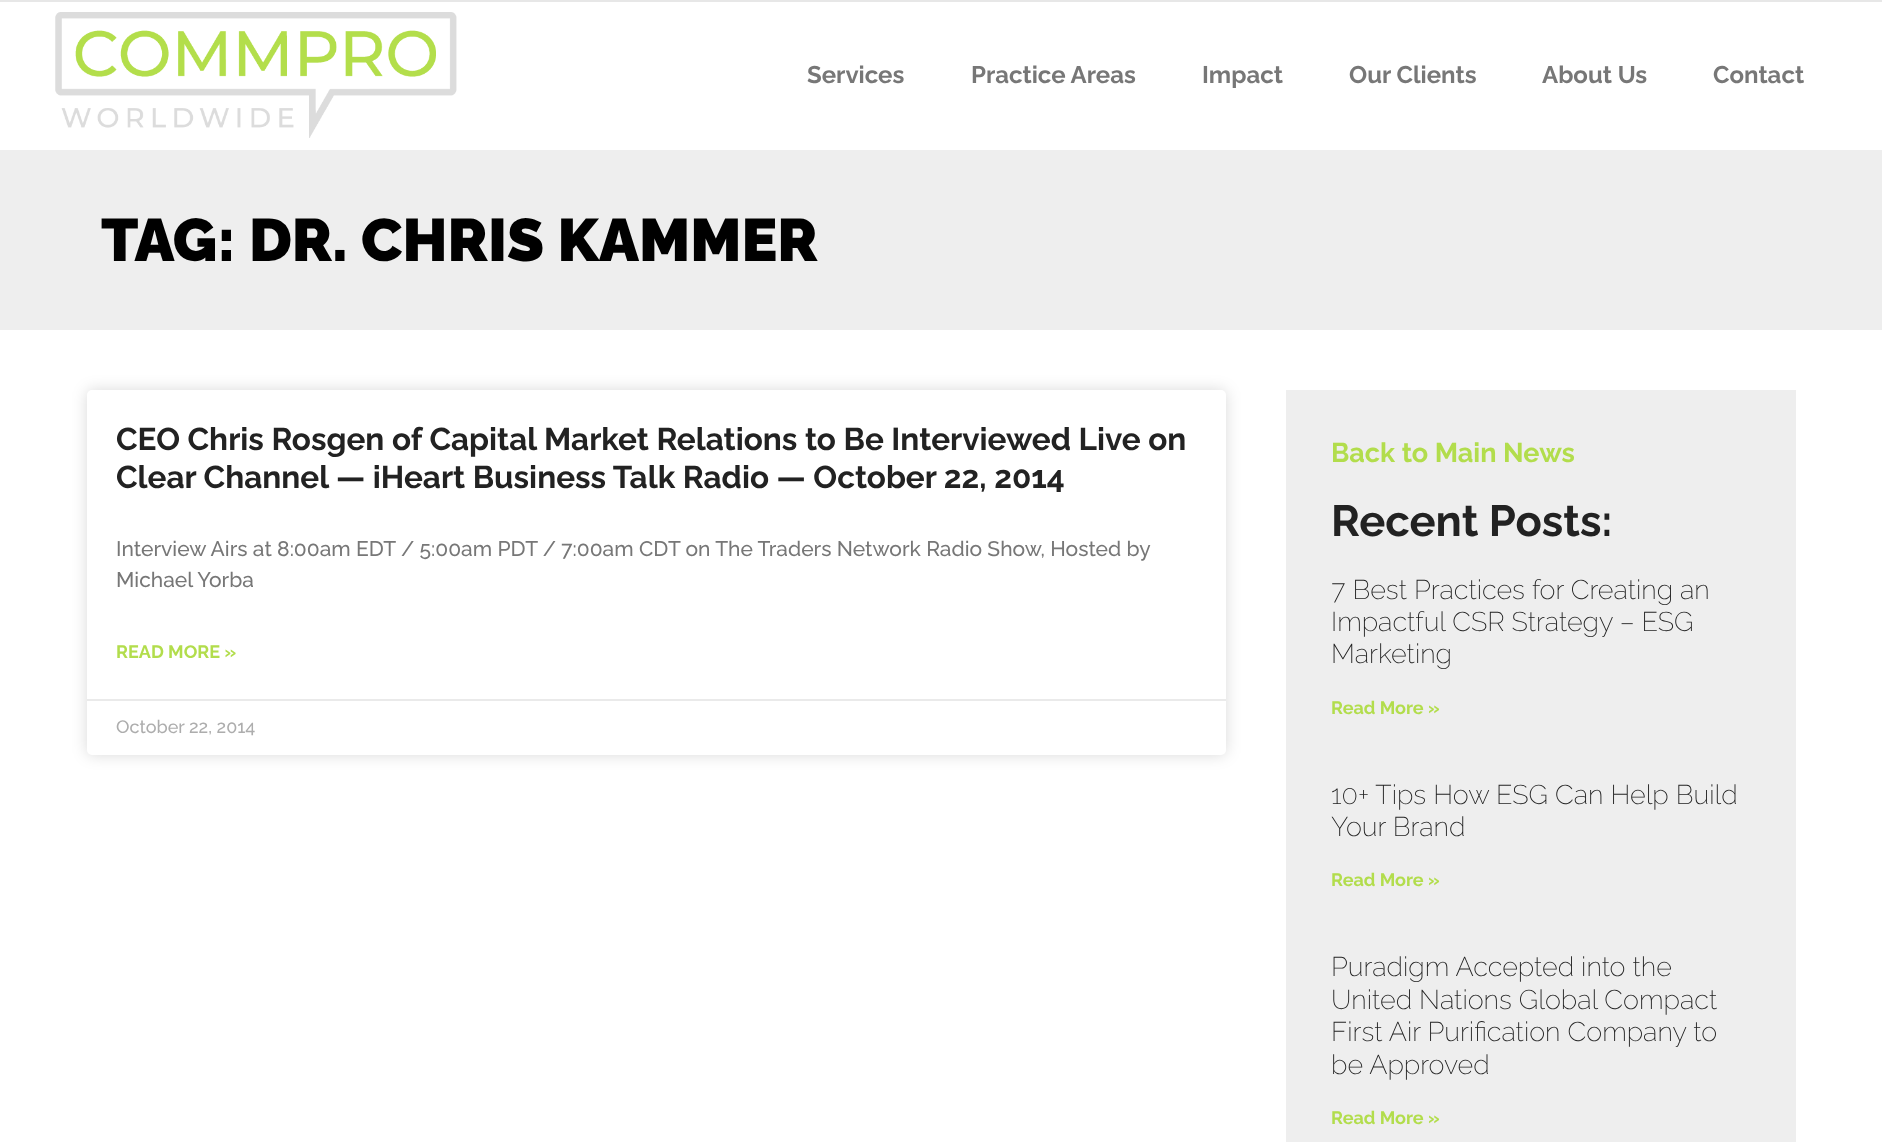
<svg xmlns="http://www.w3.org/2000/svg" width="1882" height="1142">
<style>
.a{font:bold 24px Raleway;fill:#777}
.b{font:900 60px Raleway;fill:#000}
.c{font:bold 31.5px Raleway;fill:#222}
.d{font:500 21px Raleway;fill:#777}
.e{font:bold 18px Raleway;fill:#b2dd4c}
.f{font:500 18px Raleway;fill:#adadad}
.g{font:bold 27px Raleway;fill:#b2dd4c}
.h{font:bold 43.5px Raleway;fill:#222}
.i{font:200 27px Raleway;fill:#222}
</style>
<rect width="100%" height="100%" fill="#fff"/>
<path fill="#e7e7e7" d="M0 0h1882v2H0z"/>
<image href="1.png" x="55" y="12" width="402" height="126"/>
<path fill="#eee" d="M0 150h1882v180H0z"/>
<rect fill="#00000026" filter="blur(7.5px)" x="87" y="390" width="1139" height="365" rx="5"/>
<rect fill="#fff" x="87" y="390" width="1139" height="365" rx="5"/>
<path fill="#eaeaea" d="M87 699h1139v2H87z"/>
<path fill="#eee" d="M1286 390h510v752H1286z"/>
<text class="a" x="807" y="83">Services</text>
<text class="a" x="971" y="83">Practice Areas</text>
<text class="a" x="1202" y="83">Impact</text>
<text class="a" x="1349" y="83">Our Clients</text>
<text class="a" x="1542" y="83">About Us</text>
<text class="a" x="1713" y="83">Contact</text>
<text class="b" x="101" y="261">TAG: DR. CHRIS KAMMER</text>
<text class="c" x="116" y="450">CEO Chris Rosgen of Capital Market Relations to Be Interviewed Live on</text>
<text class="c" x="116" y="488">Clear Channel — iHeart Business Talk Radio — October 22, 2014</text>
<text class="d" x="116" y="556">Interview Airs at 8:00am EDT / 5:00am PDT / 7:00am CDT on The Traders Network Radio Show, Hosted by</text>
<text class="d" x="116" y="587">Michael Yorba</text>
<text class="e" x="116" y="658">READ MORE »</text>
<text class="f" x="116" y="733">October 22, 2014</text>
<text class="g" x="1331" y="462">Back to Main News</text>
<text class="h" x="1331" y="536">Recent Posts:</text>
<text class="i" x="1331" y="599">7 Best Practices for Creating an</text>
<text class="i" x="1331" y="631">Impactful CSR Strategy – ESG</text>
<text class="i" x="1331" y="663">Marketing</text>
<text class="e" x="1331" y="714">Read More »</text>
<text class="i" x="1331" y="804">10+ Tips How ESG Can Help Build</text>
<text class="i" x="1331" y="836">Your Brand</text>
<text class="e" x="1331" y="886">Read More »</text>
<text class="i" x="1331" y="976">Puradigm Accepted into the</text>
<text class="i" x="1331" y="1009">United Nations Global Compact</text>
<text class="i" x="1331" y="1041">First Air Purification Company to</text>
<text class="i" x="1331" y="1074">be Approved</text>
<text class="e" x="1331" y="1124">Read More »</text>
</svg>
